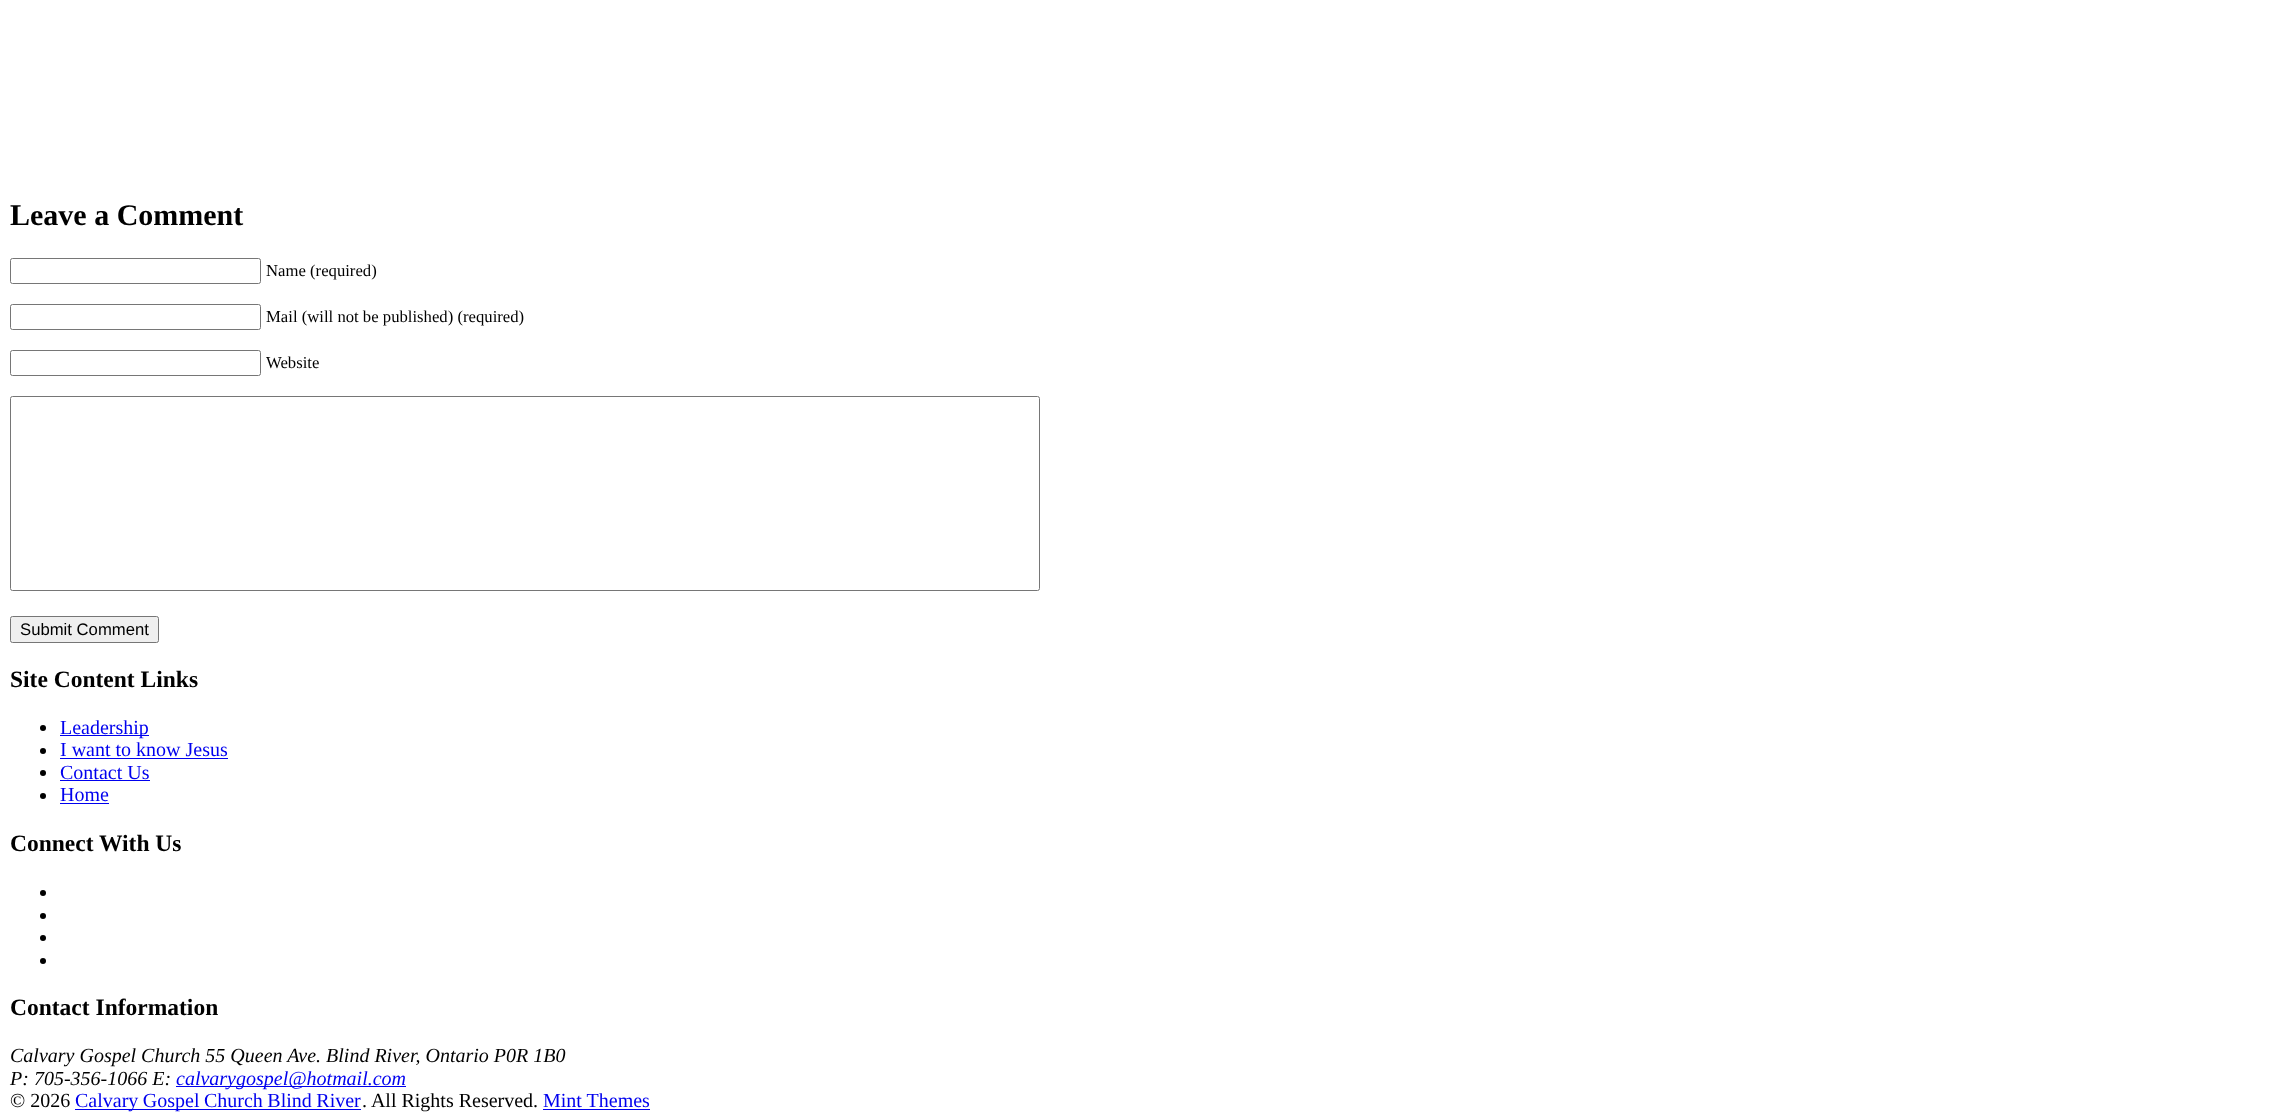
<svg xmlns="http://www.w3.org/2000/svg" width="2280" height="1112">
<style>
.a{font:bold 30px Liberation Serif;fill:#000}
.b{font:16.7px Liberation Serif;fill:#000}
.c{font:16.7px Liberation Sans;fill:#000}
.d{font:bold 23.5px Liberation Serif;fill:#000}
.e{font:20px Liberation Serif;fill:#00e}
.f{font:italic 20px Liberation Serif;fill:#000}
.g{font:italic 20px Liberation Serif;fill:#00e}
.h{font:20px Liberation Serif;fill:#000}
</style>
<rect width="100%" height="100%" fill="#fff"/>
<rect fill="none" stroke="#767676" x="10.5" y="258.5" width="250" height="25" rx="2"/>
<rect fill="none" stroke="#767676" x="10.5" y="304.5" width="250" height="25" rx="2"/>
<rect fill="none" stroke="#767676" x="10.5" y="350.5" width="250" height="25" rx="2"/>
<rect fill="none" stroke="#767676" x="10.5" y="396.5" width="1029" height="194" rx="2"/>
<rect fill="#efefef" stroke="#767676" x="10.5" y="616.5" width="148" height="26" rx="2"/>
<circle fill="#000" cx="43" cy="728" r="3"/>
<path fill="#00e" d="M60 735h89v1H60z"/>
<circle fill="#000" cx="43" cy="751" r="3"/>
<path fill="#00e" d="M60 758h168v1H60z"/>
<circle fill="#000" cx="43" cy="773" r="3"/>
<path fill="#00e" d="M60 780h90v1H60z"/>
<circle fill="#000" cx="43" cy="796" r="3"/>
<path fill="#00e" d="M60 803h49v1H60z"/>
<circle fill="#000" cx="43" cy="893" r="3"/>
<circle fill="#000" cx="43" cy="916" r="3"/>
<circle fill="#000" cx="43" cy="938" r="3"/>
<circle fill="#000" cx="43" cy="961" r="3"/>
<path fill="#00e" d="M176 1086h230v1H176z"/>
<path fill="#00e" d="M75 1109h286v1H75z"/>
<path fill="#00e" d="M543 1109h107v1H543z"/>
<text class="a" x="10" y="225">Leave a Comment</text>
<text class="b" x="266" y="276">Name (required)</text>
<text class="b" x="266" y="322">Mail (will not be published) (required)</text>
<text class="b" x="266" y="368">Website</text>
<text class="c" x="20" y="635">Submit Comment</text>
<text class="d" x="10" y="687">Site Content Links</text>
<text class="e" x="60" y="734">Leadership</text>
<text class="e" x="60" y="756">I want to know Jesus</text>
<text class="e" x="60" y="779">Contact Us</text>
<text class="e" x="60" y="801">Home</text>
<text class="d" x="10" y="851">Connect With Us</text>
<text class="d" x="10" y="1015">Contact Information</text>
<text class="f" x="10" y="1062">Calvary Gospel Church 55 Queen Ave. Blind River, Ontario P0R 1B0</text>
<text class="f" x="10" y="1085">P: 705-356-1066 E:</text>
<text class="g" x="176" y="1085">calvarygospel@hotmail.com</text>
<text class="h" x="10" y="1107">© 2026</text>
<text class="e" x="75" y="1107" word-spacing="-0.5">Calvary Gospel Church Blind River</text>
<text class="h" x="362" y="1107">. All Rights Reserved.</text>
<text class="e" x="543" y="1107">Mint Themes</text>
</svg>
